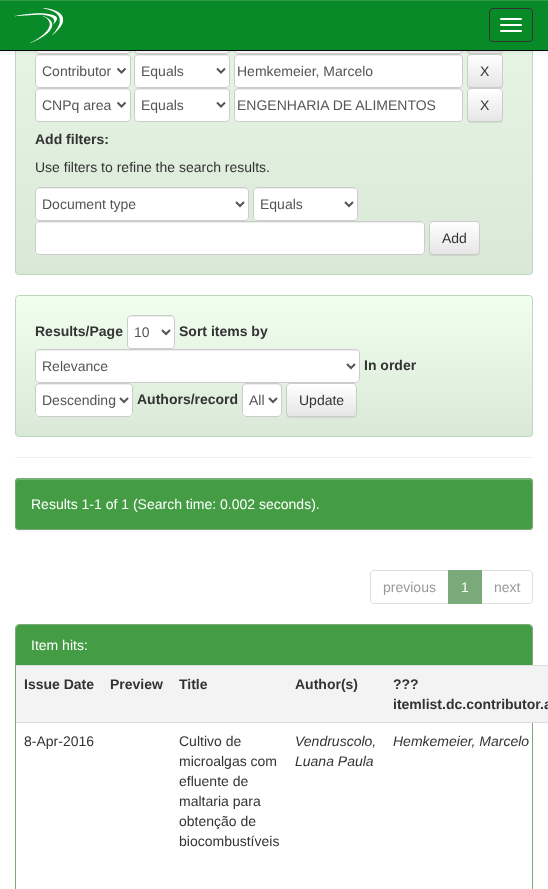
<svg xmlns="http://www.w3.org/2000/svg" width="548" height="889">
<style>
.a{font:14px Liberation Sans;fill:#555}
.b{font:14px Liberation Sans;fill:#333}
.c{font:bold 14px Liberation Sans;fill:#333}
.d{font:14px Liberation Sans;fill:#fff}
.e{font:14px Liberation Sans;fill:#999}
.f{font:italic 14px Liberation Sans;fill:#333}
</style>
<defs>
<clipPath id="clip1"><rect x="15" y="-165" width="518" height="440" rx="4"/></clipPath>
<linearGradient id="g1" gradientUnits="userSpaceOnUse" x1="274" y1="-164" x2="274" y2="274"><stop offset="0" stop-color="#f1ffee"/><stop offset="1" stop-color="#dae8d7"/></linearGradient>
<clipPath id="clip2"><rect x="467" y="20" width="36" height="34" rx="4"/></clipPath>
<linearGradient id="g2" gradientUnits="userSpaceOnUse" x1="485" y1="21" x2="485" y2="53"><stop offset="0" stop-color="#fff"/><stop offset="1" stop-color="#e6e6e6"/></linearGradient>
<clipPath id="clip3"><rect x="467" y="54" width="36" height="34" rx="4"/></clipPath>
<linearGradient id="g3" gradientUnits="userSpaceOnUse" x1="485" y1="55" x2="485" y2="87"><stop offset="0" stop-color="#fff"/><stop offset="1" stop-color="#e6e6e6"/></linearGradient>
<clipPath id="clip4"><rect x="467" y="88" width="36" height="34" rx="4"/></clipPath>
<linearGradient id="g4" gradientUnits="userSpaceOnUse" x1="485" y1="89" x2="485" y2="121"><stop offset="0" stop-color="#fff"/><stop offset="1" stop-color="#e6e6e6"/></linearGradient>
<clipPath id="clip5"><rect x="429" y="221" width="51" height="34" rx="4"/></clipPath>
<linearGradient id="g5" gradientUnits="userSpaceOnUse" x1="455" y1="222" x2="455" y2="254"><stop offset="0" stop-color="#fff"/><stop offset="1" stop-color="#e6e6e6"/></linearGradient>
<clipPath id="clip6"><rect x="15" y="295" width="518" height="142" rx="4"/></clipPath>
<linearGradient id="g6" gradientUnits="userSpaceOnUse" x1="274" y1="296" x2="274" y2="436"><stop offset="0" stop-color="#f1ffee"/><stop offset="1" stop-color="#dae8d7"/></linearGradient>
<clipPath id="clip7"><rect x="286" y="383" width="71" height="34" rx="4"/></clipPath>
<linearGradient id="g7" gradientUnits="userSpaceOnUse" x1="322" y1="384" x2="322" y2="416"><stop offset="0" stop-color="#fff"/><stop offset="1" stop-color="#e6e6e6"/></linearGradient>
</defs>
<rect width="100%" height="100%" fill="#fff"/>
<g clip-path="url(#clip1)">
<path fill="url(#g1)" d="M15 51h518v223H15z"/>
</g>
<rect fill="none" stroke="#bed7be" x="15.5" y="-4.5" width="517" height="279" rx="3.5"/>
<rect fill="#fff" stroke="#ccc" x="35.5" y="20.5" width="95" height="33" rx="3.5"/>
<rect fill="#fff" stroke="#ccc" x="134.5" y="20.5" width="95" height="33" rx="3.5"/>
<rect fill="#fff" stroke="#ccc" x="234.5" y="20.5" width="228" height="33" rx="3.5"/>
<rect fill="#00000012" filter="blur(0.5px)" x="467" y="21" width="36" height="34" rx="4"/>
<g clip-path="url(#clip2)">
<path fill="url(#g2)" d="M467 51h36v2H467z"/>
</g>
<rect fill="none" stroke="#ccc" x="467.5" y="20.5" width="35" height="33" rx="3.5"/>
<rect fill="#fff" x="35" y="54" width="96" height="34" rx="4"/>
<path fill="#ececec" d="M39 56h88c2 0 3 1 3 3c0-8-14-4-18-4h-58c-4 0-18-4-18 4c0-2 1-3 3-3z"/>
<rect fill="none" stroke="#ccc" x="35.5" y="54.5" width="95" height="33" rx="3.5"/>
<rect fill="#fff" x="134" y="54" width="96" height="34" rx="4"/>
<path fill="#ececec" d="M138 56h88c2 0 3 1 3 3c0-8-14-4-18-4h-58c-4 0-18-4-18 4c0-2 1-3 3-3z"/>
<rect fill="none" stroke="#ccc" x="134.5" y="54.5" width="95" height="33" rx="3.5"/>
<rect fill="#fff" x="234" y="54" width="229" height="34" rx="4"/>
<path fill="#ececec" d="M238 56h221c2 0 3 1 3 3v-1c0-2-1-3-3-3h-221c-2 0-3 1-3 3v1c0-2 1-3 3-3z"/>
<rect fill="none" stroke="#ccc" x="234.5" y="54.5" width="228" height="33" rx="3.5"/>
<rect fill="#00000012" filter="blur(0.5px)" x="467" y="55" width="36" height="34" rx="4"/>
<g clip-path="url(#clip3)">
<path fill="url(#g3)" d="M467 55h36v32H467z"/>
</g>
<rect fill="none" stroke="#ccc" x="467.5" y="54.5" width="35" height="33" rx="3.5"/>
<path fill="#00000012" filter="blur(2.5px)" d="M0 1h548v51H0z"/>
<path fill="#088a29" d="M0 1h548v49H0z"/>
<path fill="#2d9c49" d="M0 0h548v1H0z"/>
<path fill="#080808" d="M0 50h548v1H0z"/>
<image href="1.png" x="15" y="8" width="48" height="35"/>
<rect fill="none" stroke="#333" x="489.5" y="8.5" width="43" height="33" rx="3.5"/>
<rect fill="#fff" x="500" y="18" width="22" height="2" rx="1"/>
<rect fill="#fff" x="500" y="24" width="22" height="2" rx="1"/>
<rect fill="#fff" x="500" y="30" width="22" height="2" rx="1"/>
<path fill="none" stroke="#555" stroke-width="2" d="M117.5 68.5l4 4l4-4"/>
<path fill="none" stroke="#555" stroke-width="2" d="M217 68.5l4 4l4-4"/>
<rect fill="#fff" x="35" y="88" width="96" height="34" rx="4"/>
<path fill="#ececec" d="M39 90h88c2 0 3 1 3 3c0-8-14-4-18-4h-58c-4 0-18-4-18 4c0-2 1-3 3-3z"/>
<rect fill="none" stroke="#ccc" x="35.5" y="88.5" width="95" height="33" rx="3.5"/>
<path fill="none" stroke="#555" stroke-width="2" d="M117.5 102.5l4 4l4-4"/>
<rect fill="#fff" x="134" y="88" width="96" height="34" rx="4"/>
<path fill="#ececec" d="M138 90h88c2 0 3 1 3 3c0-8-14-4-18-4h-58c-4 0-18-4-18 4c0-2 1-3 3-3z"/>
<rect fill="none" stroke="#ccc" x="134.5" y="88.5" width="95" height="33" rx="3.5"/>
<path fill="none" stroke="#555" stroke-width="2" d="M217 102.5l4 4l4-4"/>
<rect fill="#fff" x="234" y="88" width="229" height="34" rx="4"/>
<path fill="#ececec" d="M238 90h221c2 0 3 1 3 3v-1c0-2-1-3-3-3h-221c-2 0-3 1-3 3v1c0-2 1-3 3-3z"/>
<rect fill="none" stroke="#ccc" x="234.5" y="88.5" width="228" height="33" rx="3.5"/>
<rect fill="#00000012" filter="blur(0.5px)" x="467" y="89" width="36" height="34" rx="4"/>
<g clip-path="url(#clip4)">
<path fill="url(#g4)" d="M467 89h36v32H467z"/>
</g>
<rect fill="none" stroke="#ccc" x="467.5" y="88.5" width="35" height="33" rx="3.5"/>
<rect fill="#fff" x="35" y="187" width="214" height="34" rx="4"/>
<path fill="#ececec" d="M39 189h206c2 0 3 1 3 3v-1c0-2-1-3-3-3h-206c-2 0-3 1-3 3v1c0-2 1-3 3-3z"/>
<rect fill="none" stroke="#ccc" x="35.5" y="187.5" width="213" height="33" rx="3.5"/>
<path fill="none" stroke="#555" stroke-width="2" d="M236 202l4 4l4-4"/>
<rect fill="#fff" x="253" y="187" width="105" height="34" rx="4"/>
<path fill="#ececec" d="M257 189h97c2 0 3 1 3 3c0-8-16-4-19-4h-65c-3 0-19-4-19 4c0-2 1-3 3-3z"/>
<rect fill="none" stroke="#ccc" x="253.5" y="187.5" width="104" height="33" rx="3.5"/>
<path fill="none" stroke="#555" stroke-width="2" d="M345 202l4 4l4-4"/>
<rect fill="#fff" x="35" y="221" width="390" height="34" rx="4"/>
<path fill="#ececec" d="M39 223h382c2 0 3 1 3 3c0-2-1-4-3-4h-382l-2 1l-1 3c0-2 1-3 3-3z"/>
<rect fill="none" stroke="#ccc" x="35.5" y="221.5" width="389" height="33" rx="3.5"/>
<rect fill="#00000012" filter="blur(0.5px)" x="429" y="222" width="51" height="34" rx="4"/>
<g clip-path="url(#clip5)">
<path fill="url(#g5)" d="M429 222h51v32H429z"/>
</g>
<rect fill="none" stroke="#ccc" x="429.5" y="221.5" width="50" height="33" rx="3.5"/>
<g clip-path="url(#clip6)">
<path fill="url(#g6)" d="M15 296h518v140H15z"/>
</g>
<rect fill="none" stroke="#bed7be" x="15.5" y="295.5" width="517" height="141" rx="3.5"/>
<rect fill="#fff" x="127" y="315" width="48" height="34" rx="4"/>
<path fill="#ececec" d="M131 317h40c2 0 3 1 3 3c0-5-5-4-10-4h-26c-5 0-10-1-10 4c0-2 1-3 3-3z"/>
<rect fill="none" stroke="#ccc" x="127.5" y="315.5" width="47" height="33" rx="3.5"/>
<path fill="none" stroke="#555" stroke-width="2" d="M162 330l4 4l4-4"/>
<rect fill="#fff" x="35" y="349" width="325" height="34" rx="4"/>
<path fill="#ececec" d="M39 351h317c2 0 3 1 3 3c0-2-1-4-3-4h-317c-2 0-3 2-3 4c0-2 1-3 3-3z"/>
<rect fill="none" stroke="#ccc" x="35.5" y="349.5" width="324" height="33" rx="3.5"/>
<path fill="none" stroke="#555" stroke-width="2" d="M347 364l4 4l4-4"/>
<rect fill="#fff" x="35" y="383" width="98" height="34" rx="4"/>
<path fill="#ececec" d="M39 385h90c2 0 3 1 3 3c0-8-15-4-18-4h-60c-3 0-18-4-18 4c0-2 1-3 3-3z"/>
<rect fill="none" stroke="#ccc" x="35.5" y="383.5" width="97" height="33" rx="3.5"/>
<path fill="none" stroke="#555" stroke-width="2" d="M120 398l4 4l4-4"/>
<rect fill="#fff" x="242" y="383" width="40" height="34" rx="4"/>
<path fill="#ececec" d="M246 385h27c5.5 0 7.5 .5 8 2.5c0-5-4.5-3.5-8.5-3.5h-21c-3.5 0-8.5-1-8.5 3.5c.5-1.5 1.5-2.5 3-2.5z"/>
<rect fill="none" stroke="#ccc" x="242.5" y="383.5" width="39" height="33" rx="3.5"/>
<path fill="none" stroke="#555" stroke-width="2" d="M269 398l4 4l4-4"/>
<rect fill="#00000012" filter="blur(0.5px)" x="286" y="384" width="71" height="34" rx="4"/>
<g clip-path="url(#clip7)">
<path fill="url(#g7)" d="M286 384h71v32H286z"/>
</g>
<rect fill="none" stroke="#ccc" x="286.5" y="383.5" width="70" height="33" rx="3.5"/>
<path fill="#eee" d="M15 457h518v1H15z"/>
<rect fill="#0000000d" filter="blur(1px)" x="15" y="479" width="518" height="52" rx="4"/>
<rect fill="#449d44" x="15" y="478" width="518" height="52" rx="4"/>
<path fill="#73b673" d="M19 480h510c2 0 3 1 3 3v-2l-2-2h-511c-2 0-3 2-3 4c0-2 1-3 3-3z"/>
<rect fill="none" stroke="#7aa97a" x="15.5" y="478.5" width="517" height="51" rx="3.5"/>
<path fill="none" stroke="#ddd" d="M374 570.5h74.5v33h-74.5c-2 0-3.5-1.5-3.5-3.5v-26c0-2 1.5-3.5 3.5-3.5z"/>
<path fill="none" stroke="#ddd" d="M481.5 570.5h47.5c2 0 3.5 1.5 3.5 3.5v26c0 2-1.5 3.5-3.5 3.5h-47.5z"/>
<path fill="#7aa97a" d="M448 570h34v34H448z"/>
<rect fill="none" stroke="#7aa97a" x="15.5" y="624.5" width="517" height="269" rx="3.5"/>
<path fill="#449d44" d="M19 625h510c1.5 0 3 1.5 3 3v37h-516v-37c0-1.5 1.5-3 3-3z"/>
<path fill="#f3f3f3" d="M16 666h532v56H16z"/>
<path fill="#ddd" d="M16 665h532v1H16z"/>
<path fill="#ddd" d="M16 722h532v1H16z"/>
<text class="a" x="42" y="76">Contributor</text>
<text class="a" x="141" y="76">Equals</text>
<text class="a" x="237" y="76">Hemkemeier, Marcelo</text>
<text class="b" x="480" y="76">X</text>
<text class="a" x="42" y="110">CNPq area</text>
<text class="a" x="141" y="110">Equals</text>
<text class="a" x="237" y="110">ENGENHARIA DE ALIMENTOS</text>
<text class="b" x="480" y="110">X</text>
<text class="c" x="35" y="144">Add filters:</text>
<text class="b" x="35" y="172">Use filters to refine the search results.</text>
<text class="a" x="42" y="209">Document type</text>
<text class="a" x="260" y="209">Equals</text>
<text class="b" x="442" y="243">Add</text>
<text class="c" x="35" y="336">Results/Page</text>
<text class="a" x="134" y="337">10</text>
<text class="c" x="179" y="336">Sort items by</text>
<text class="a" x="42" y="371">Relevance</text>
<text class="c" x="364" y="370">In order</text>
<text class="a" x="42" y="405">Descending</text>
<text class="c" x="137" y="404">Authors/record</text>
<text class="a" x="249" y="405">All</text>
<text class="b" x="299" y="405">Update</text>
<text class="d" x="31" y="509">Results 1-1 of 1 (Search time: 0.002 seconds).</text>
<text class="e" x="383" y="592">previous</text>
<text class="d" x="461" y="592">1</text>
<text class="e" x="494" y="592">next</text>
<text class="d" x="31" y="650">Item hits:</text>
<text class="c" x="24" y="689">Issue Date</text>
<text class="c" x="110" y="689">Preview</text>
<text class="c" x="179" y="689">Title</text>
<text class="c" x="295" y="689">Author(s)</text>
<text class="c" x="393" y="689">???</text>
<text class="c" x="393" y="709">itemlist.dc.contributor.a</text>
<text class="b" x="24" y="746">8-Apr-2016</text>
<text class="b" x="179" y="746">Cultivo de</text>
<text class="b" x="179" y="766">microalgas com</text>
<text class="b" x="179" y="786">efluente de</text>
<text class="b" x="179" y="806">maltaria para</text>
<text class="b" x="179" y="826">obtenção de</text>
<text class="b" x="179" y="846">biocombustíveis</text>
<text class="f" x="295" y="746">Vendruscolo,</text>
<text class="f" x="295" y="766">Luana Paula</text>
<text class="f" x="393" y="746">Hemkemeier, Marcelo</text>
</svg>
